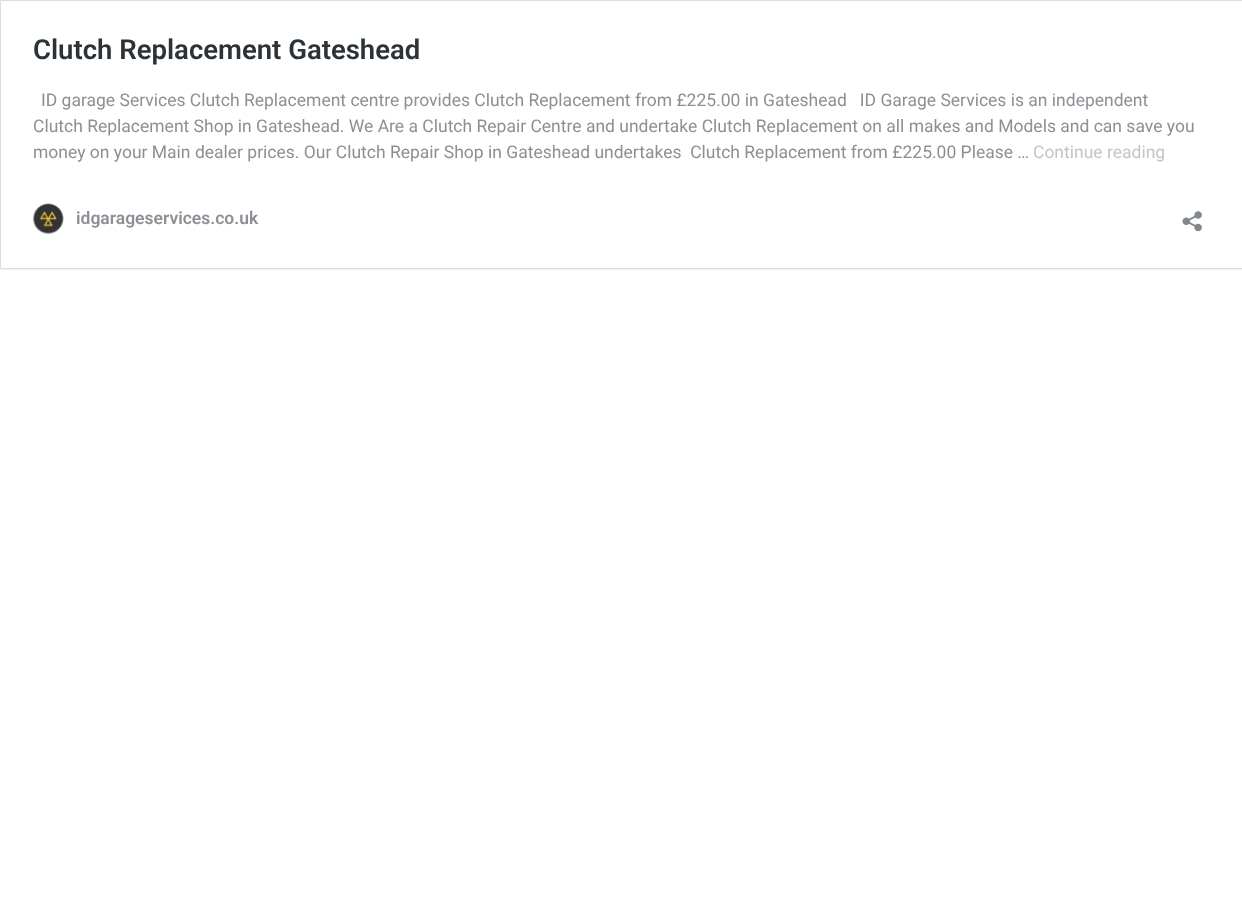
<svg xmlns="http://www.w3.org/2000/svg" width="1242" height="902">
<style>
.a{font:600 27.5px Roboto;fill:#2c3338}
.b{font:17.5px Roboto;fill:#8c8f94}
.c{font:17.5px Roboto;fill:#c3c4c7}
.d{font:600 17.5px Roboto;fill:#8c8f94}
</style>
<rect width="100%" height="100%" fill="#fff"/>
<path fill="#0000000d" filter="blur(0.5px)" d="M0 1h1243v269H0z"/>
<path fill="#fff" stroke="#dcdcde" d="M0.5 0.5h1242v268H0.5z"/>
<image href="1.png" x="32" y="203" width="32" height="32"/>
<image href="2.png" x="1182" y="211" width="20" height="21"/>
<text class="a" x="33" y="59">Clutch Replacement Gateshead</text>
<text class="b" xml:space="preserve" x="41" y="106">ID garage Services Clutch Replacement centre provides Clutch Replacement from £225.00 in Gateshead   ID Garage Services is an independent</text>
<text class="b" x="33" y="132">Clutch Replacement Shop in Gateshead. We Are a Clutch Repair Centre and undertake Clutch Replacement on all makes and Models and can save you</text>
<text class="b" xml:space="preserve" x="33" y="158">money on your Main dealer prices. Our Clutch Repair Shop in Gateshead undertakes  Clutch Replacement from £225.00 Please …</text>
<text class="c" x="1033" y="158">Continue reading</text>
<text class="d" x="76" y="224">idgarageservices.co.uk</text>
</svg>
